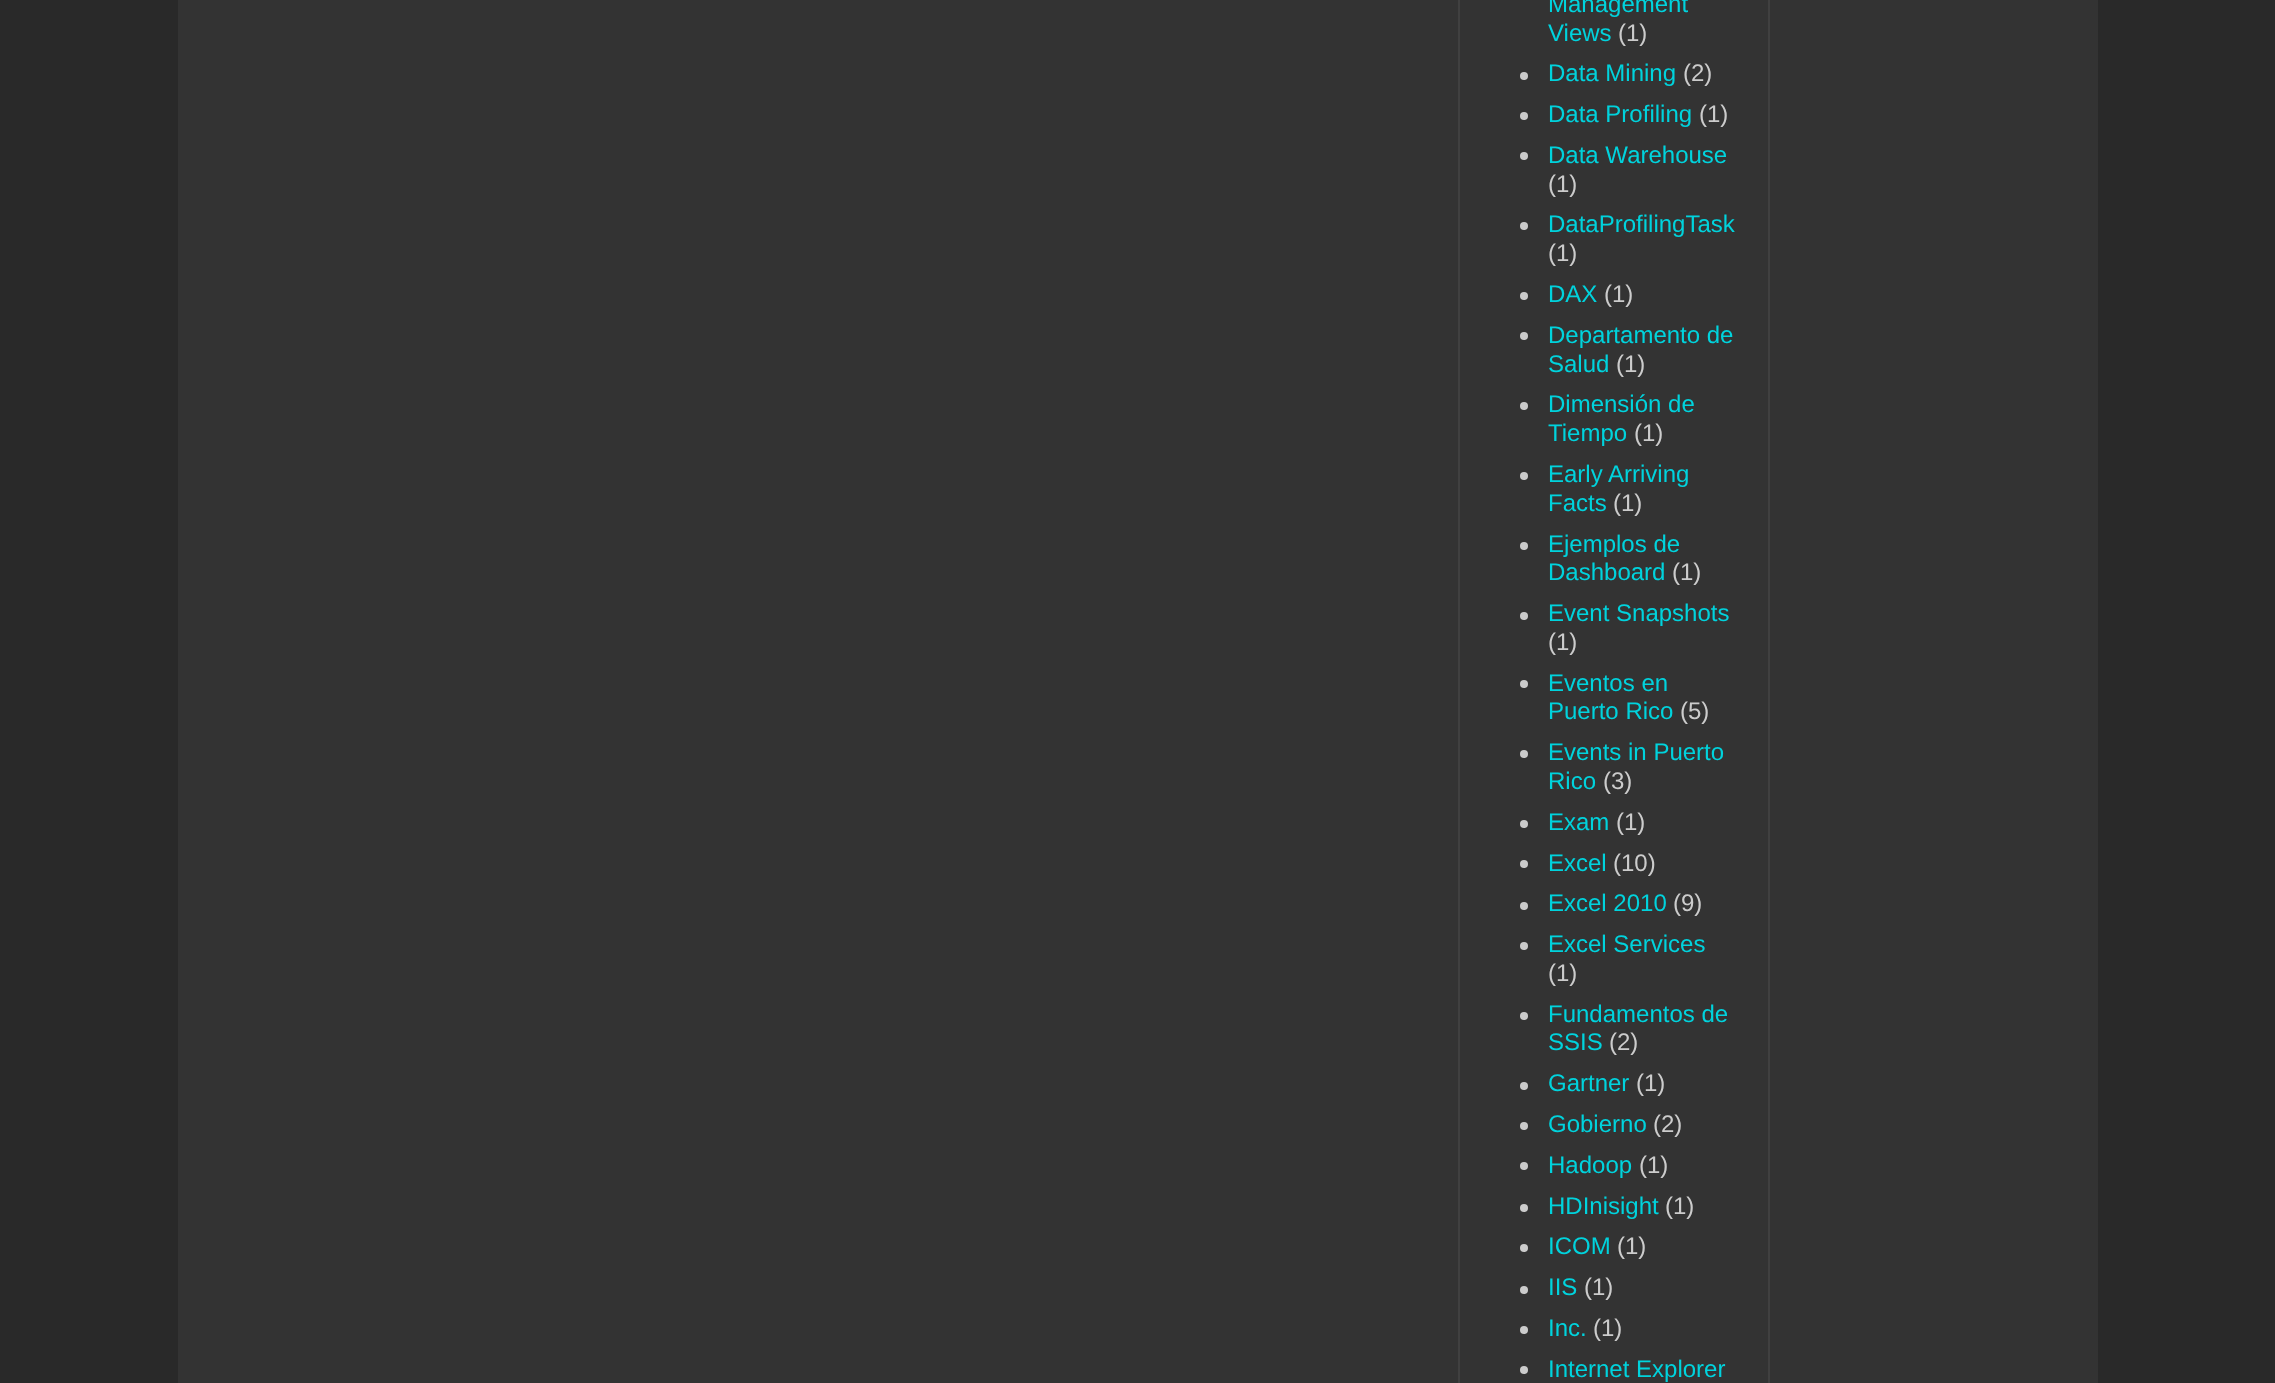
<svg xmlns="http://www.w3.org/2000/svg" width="2275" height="1383">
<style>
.a{font:24px Liberation Sans;fill:#00d3dd}
.b{font:24px Liberation Sans;fill:#ccc}
</style>
<rect width="100%" height="100%" fill="#292929"/>
<path fill="#333" d="M178 0h1920v1383H178z"/>
<path fill="#404040" d="M1458 0h2v1383H1458z"/>
<circle fill="#ccc" cx="1524" cy="76" r="4"/>
<circle fill="#ccc" cx="1524" cy="116" r="4"/>
<circle fill="#ccc" cx="1524" cy="156" r="4"/>
<circle fill="#ccc" cx="1524" cy="226" r="4"/>
<circle fill="#ccc" cx="1524" cy="296" r="4"/>
<circle fill="#ccc" cx="1524" cy="336" r="4"/>
<circle fill="#ccc" cx="1524" cy="406" r="4"/>
<circle fill="#ccc" cx="1524" cy="476" r="4"/>
<circle fill="#ccc" cx="1524" cy="546" r="4"/>
<circle fill="#ccc" cx="1524" cy="616" r="4"/>
<circle fill="#ccc" cx="1524" cy="684" r="4"/>
<circle fill="#ccc" cx="1524" cy="754" r="4"/>
<circle fill="#ccc" cx="1524" cy="824" r="4"/>
<circle fill="#ccc" cx="1524" cy="864" r="4"/>
<circle fill="#ccc" cx="1524" cy="906" r="4"/>
<circle fill="#ccc" cx="1524" cy="946" r="4"/>
<circle fill="#ccc" cx="1524" cy="1016" r="4"/>
<circle fill="#ccc" cx="1524" cy="1086" r="4"/>
<circle fill="#ccc" cx="1524" cy="1126" r="4"/>
<circle fill="#ccc" cx="1524" cy="1166" r="4"/>
<circle fill="#ccc" cx="1524" cy="1208" r="4"/>
<circle fill="#ccc" cx="1524" cy="1248" r="4"/>
<circle fill="#ccc" cx="1524" cy="1290" r="4"/>
<circle fill="#ccc" cx="1524" cy="1330" r="4"/>
<circle fill="#ccc" cx="1524" cy="1370" r="4"/>
<path fill="#404040" d="M1768 0h2v1383H1768z"/>
<text class="a" x="1548" y="12">Management</text>
<text class="a" x="1548" y="41">Views</text>
<text class="b" x="1618" y="41">(1)</text>
<text class="a" x="1548" y="81">Data Mining</text>
<text class="b" x="1683" y="81">(2)</text>
<text class="a" x="1548" y="122">Data Profiling</text>
<text class="b" x="1699" y="122">(1)</text>
<text class="a" x="1548" y="163">Data Warehouse</text>
<text class="b" x="1548" y="192">(1)</text>
<text class="a" x="1548" y="232">DataProfilingTask</text>
<text class="b" x="1548" y="261">(1)</text>
<text class="a" x="1548" y="302">DAX</text>
<text class="b" x="1604" y="302">(1)</text>
<text class="a" x="1548" y="343">Departamento de</text>
<text class="a" x="1548" y="372">Salud</text>
<text class="b" x="1616" y="372">(1)</text>
<text class="a" x="1548" y="412">Dimensión de</text>
<text class="a" x="1548" y="441">Tiempo</text>
<text class="b" x="1634" y="441">(1)</text>
<text class="a" x="1548" y="482">Early Arriving</text>
<text class="a" x="1548" y="511">Facts</text>
<text class="b" x="1613" y="511">(1)</text>
<text class="a" x="1548" y="552">Ejemplos de</text>
<text class="a" x="1548" y="580">Dashboard</text>
<text class="b" x="1672" y="580">(1)</text>
<text class="a" x="1548" y="621">Event Snapshots</text>
<text class="b" x="1548" y="650">(1)</text>
<text class="a" x="1548" y="691">Eventos en</text>
<text class="a" x="1548" y="719">Puerto Rico</text>
<text class="b" x="1680" y="719">(5)</text>
<text class="a" x="1548" y="760">Events in Puerto</text>
<text class="a" x="1548" y="789">Rico</text>
<text class="b" x="1603" y="789">(3)</text>
<text class="a" x="1548" y="830">Exam</text>
<text class="b" x="1616" y="830">(1)</text>
<text class="a" x="1548" y="871">Excel</text>
<text class="b" x="1613" y="871">(10)</text>
<text class="a" x="1548" y="911">Excel 2010</text>
<text class="b" x="1673" y="911">(9)</text>
<text class="a" x="1548" y="952">Excel Services</text>
<text class="b" x="1548" y="981">(1)</text>
<text class="a" x="1548" y="1022">Fundamentos de</text>
<text class="a" x="1548" y="1050">SSIS</text>
<text class="b" x="1609" y="1050">(2)</text>
<text class="a" x="1548" y="1091">Gartner</text>
<text class="b" x="1636" y="1091">(1)</text>
<text class="a" x="1548" y="1132">Gobierno</text>
<text class="b" x="1653" y="1132">(2)</text>
<text class="a" x="1548" y="1173">Hadoop</text>
<text class="b" x="1639" y="1173">(1)</text>
<text class="a" x="1548" y="1214">HDInisight</text>
<text class="b" x="1665" y="1214">(1)</text>
<text class="a" x="1548" y="1254">ICOM</text>
<text class="b" x="1617" y="1254">(1)</text>
<text class="a" x="1548" y="1295">IIS</text>
<text class="b" x="1584" y="1295">(1)</text>
<text class="a" x="1548" y="1336">Inc.</text>
<text class="b" x="1593" y="1336">(1)</text>
<text class="a" x="1548" y="1377">Internet Explorer</text>
</svg>
